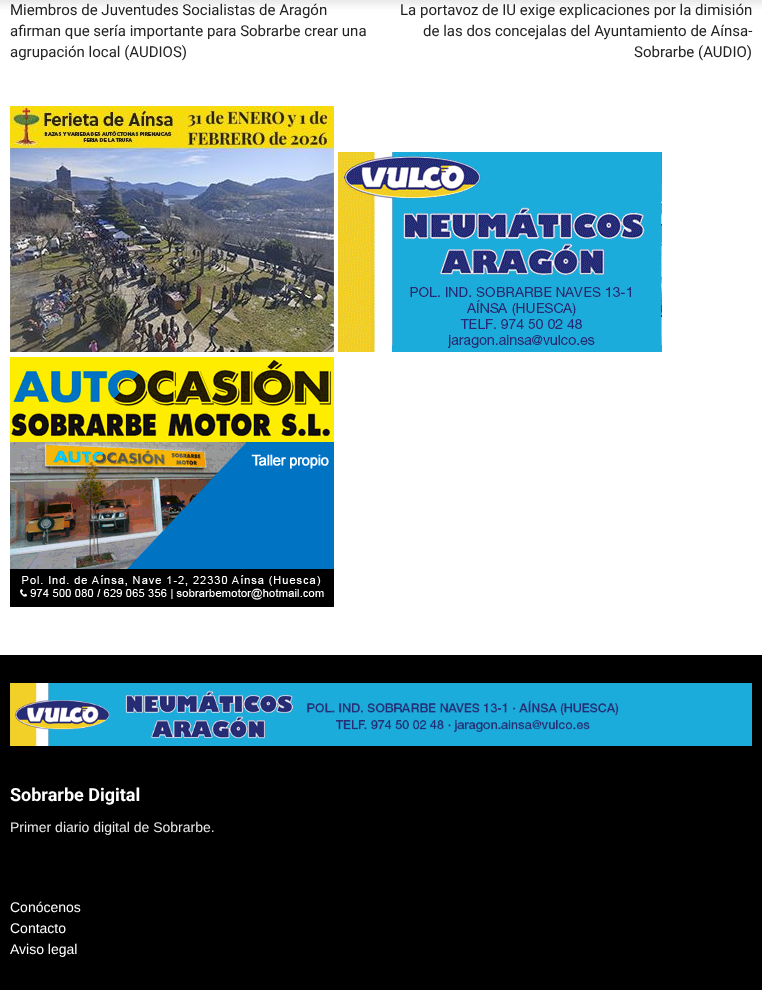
<svg xmlns="http://www.w3.org/2000/svg" width="762" height="990">
<style>
.a{font:15px Roboto;fill:#222}
.b{font:bold 18px Roboto;fill:#fff}
.c{font:14px Liberation Sans;fill:#eaeaea}
.d{font:14px Liberation Sans;fill:#fff}
</style>
<rect width="100%" height="100%" fill="#fff"/>
<image href="2.png" x="10" y="106" width="324" height="246"/>
<image href="3.png" x="338" y="152" width="324" height="200"/>
<image href="4.png" x="10" y="357" width="324" height="250"/>
<path fill="#000" d="M0 655h762v335H0z"/>
<image href="5.png" x="10" y="683" width="742" height="63"/>
<text class="a" x="10" y="15">Miembros de Juventudes Socialistas de Aragón</text>
<text class="a" x="10" y="36">afirman que sería importante para Sobrarbe crear una</text>
<text class="a" x="10" y="57">agrupación local (AUDIOS)</text>
<text class="a" x="400" y="15">La portavoz de IU exige explicaciones por la dimisión</text>
<image href="1.png" x="0" y="0" width="762" height="9"/>
<text class="a" x="423" y="36">de las dos concejalas del Ayuntamiento de Aínsa-</text>
<text class="a" x="634" y="57">Sobrarbe (AUDIO)</text>
<text class="b" x="10" y="801">Sobrarbe Digital</text>
<text class="c" x="10" y="832">Primer diario digital de Sobrarbe.</text>
<text class="d" x="10" y="912">Conócenos</text>
<text class="d" x="10" y="933">Contacto</text>
<text class="d" x="10" y="954">Aviso legal</text>
</svg>
